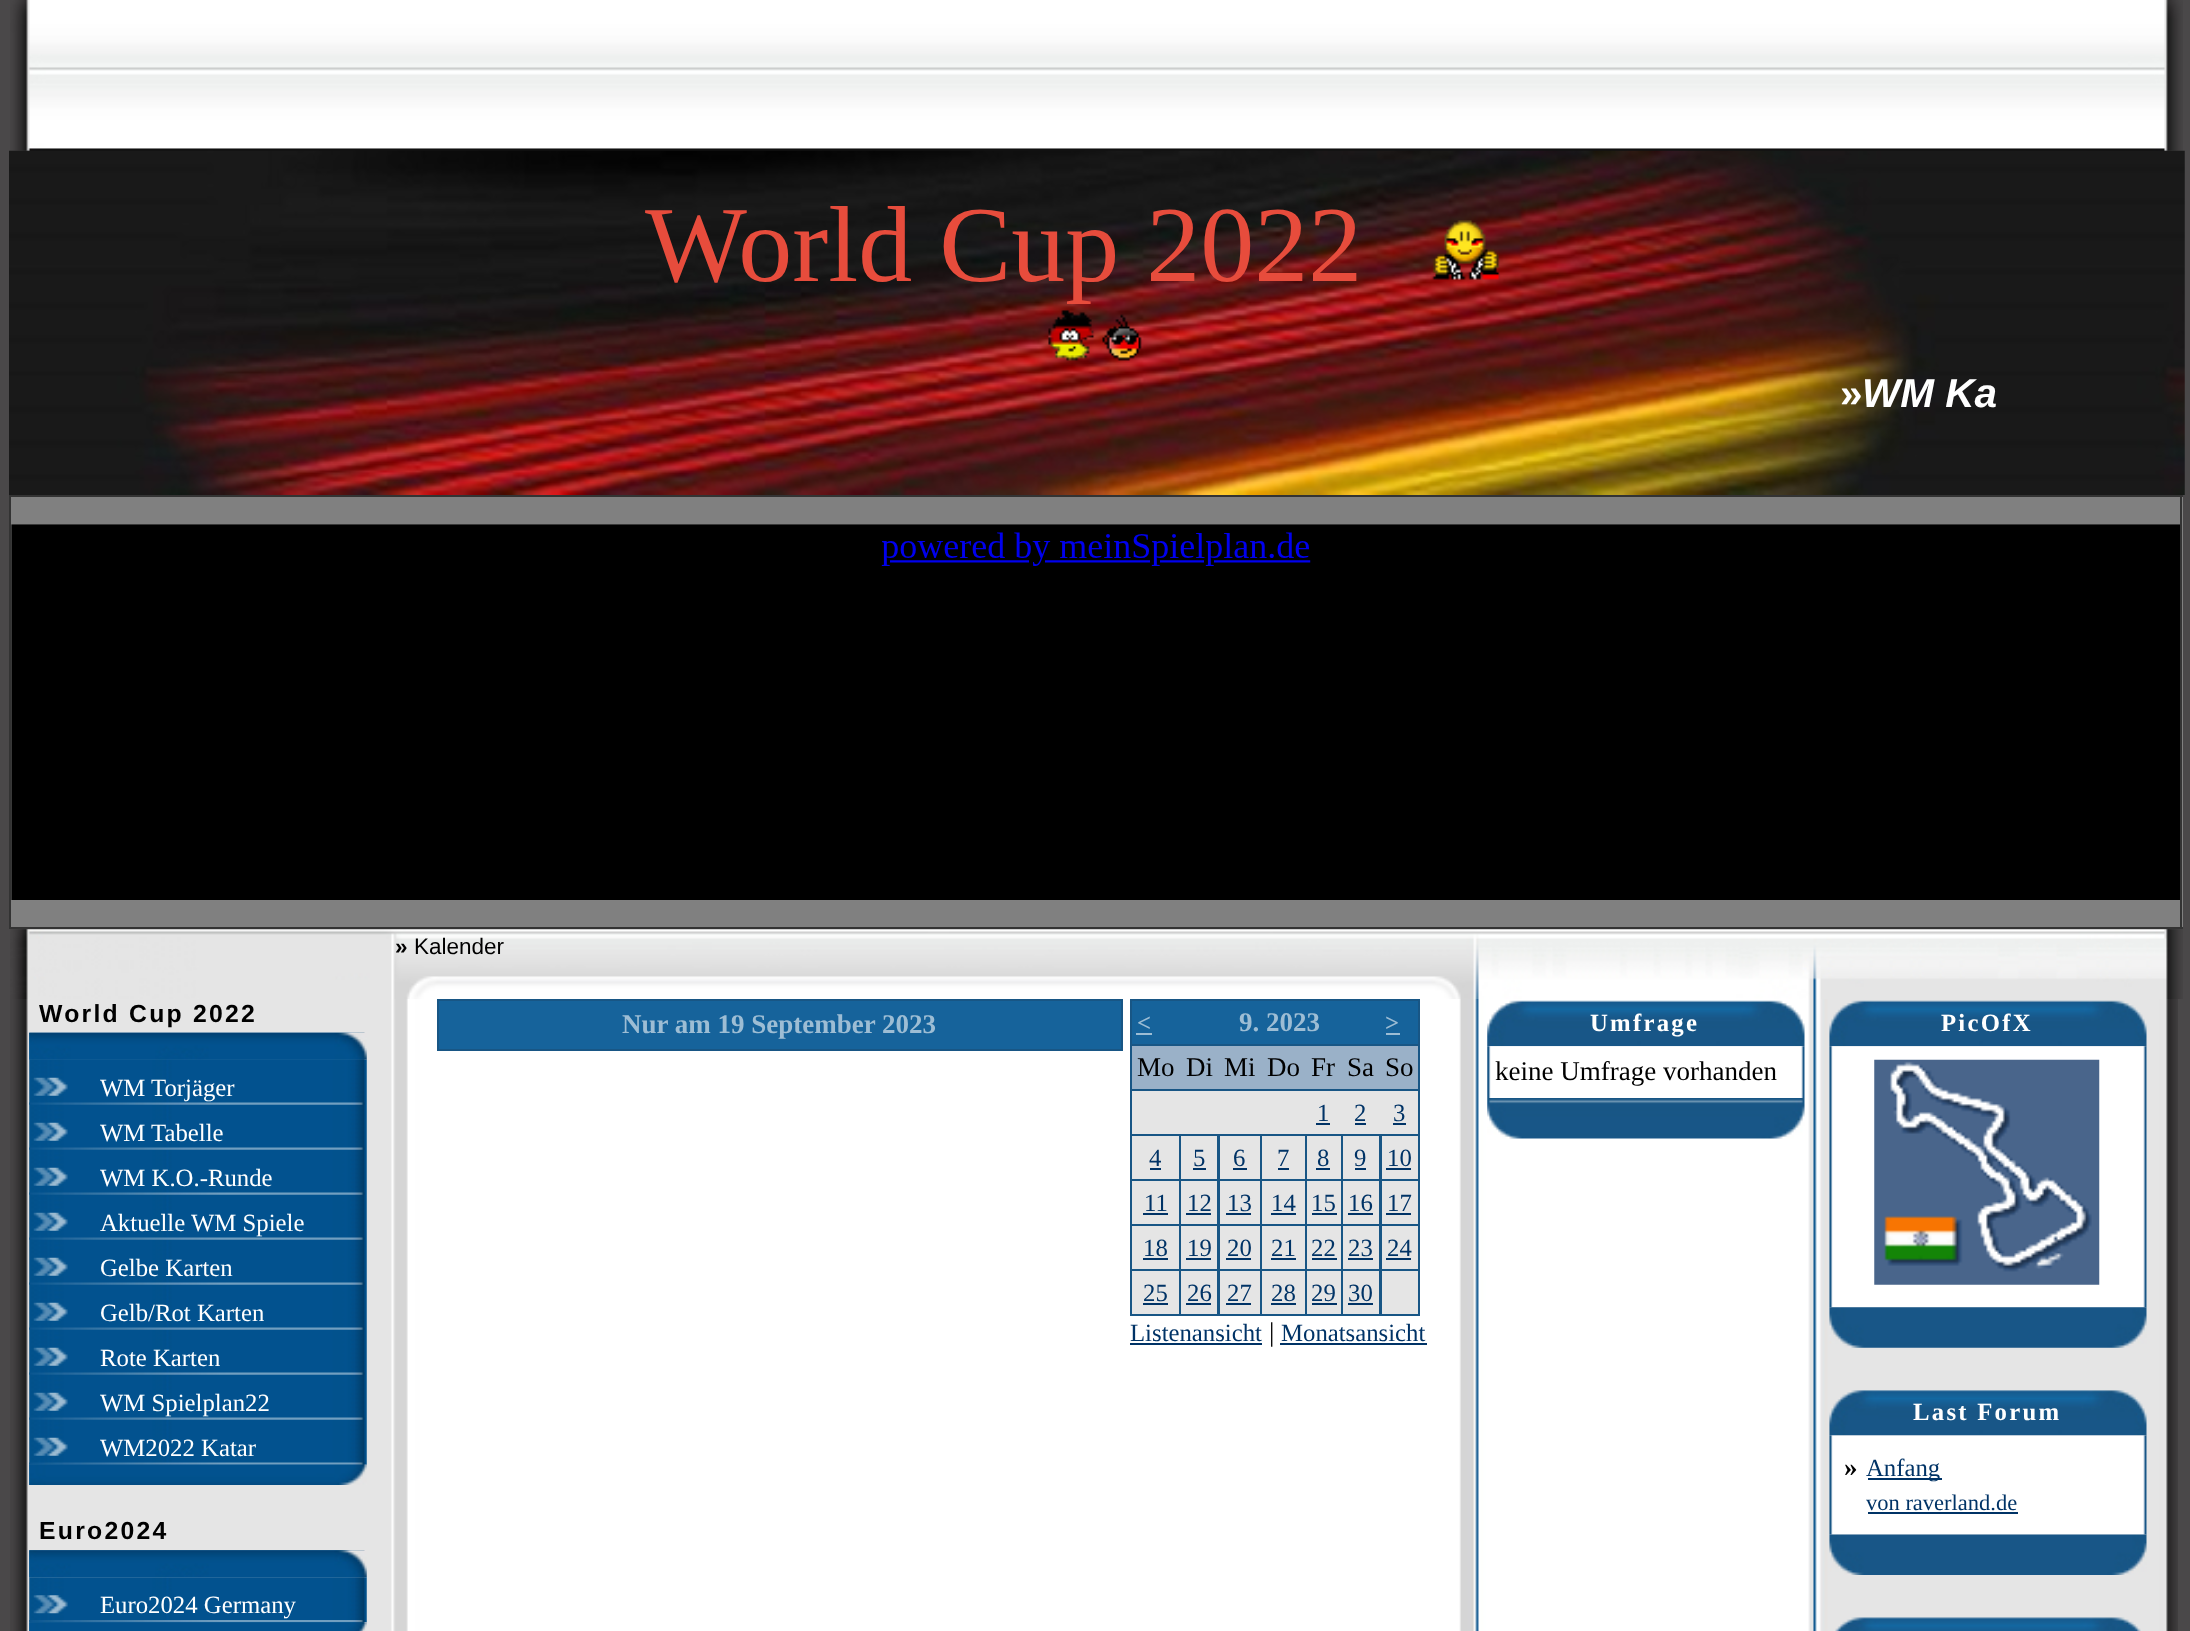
<svg xmlns="http://www.w3.org/2000/svg" width="2190" height="1631">
<style>
.a{font:108px Liberation Serif;fill:#e74c3c}
.b{font:bold 40.5px Liberation Sans;fill:#fff}
.c{font:italic bold 40.5px Liberation Sans;fill:#fff}
.d{font:bold 22.5px Liberation Sans;fill:#000}
.e{font:22.5px Liberation Sans;fill:#000}
.f{font:bold 24.75px Liberation Sans;letter-spacing:2.25px;fill:#000}
.g{font:24.75px Liberation Serif;fill:#fff}
.h{font:bold 27px Liberation Serif;fill:#9dbdd4}
.i{font:bold 24.75px Liberation Serif;fill:#9dbdd4}
.j{font:27px Liberation Serif;fill:#000}
.k{font:24.75px Liberation Serif;fill:#036}
.l{font:bold 24.75px Liberation Serif;letter-spacing:2.25px;fill:#fff}
.m{font:bold 27px Liberation Serif;fill:#000}
.n{font:22.5px Liberation Serif;fill:#036}
</style>
<rect width="100%" height="100%" fill="#4a4849"/>
<image href="1.png" x="10" y="0" width="2173" height="151"/>
<image href="2.png" x="9" y="150" width="2176" height="345"/>
<image href="3.png" x="1432" y="220" width="68" height="60"/>
<image href="4.png" x="1048" y="310" width="47" height="51"/>
<image href="5.png" x="1102" y="314" width="40" height="47"/>
<path fill="#333" d="M9 495h2174v2H9z"/>
<path fill="#808080" d="M11 497h2172v430H11z"/>
<path fill="#333" d="M2180 495h2v434H2180z"/>
<path fill="#333" d="M9 927h2174v2H9z"/>
<path fill="#333" d="M9 495h2v434H9z"/>
<image href="6.png" x="11" y="524" width="2169" height="376"/>
<image href="7.png" x="10" y="929" width="2173" height="70"/>
<image href="8.png" x="10" y="999" width="2168" height="632"/>
<image href="9.png" x="29" y="1032" width="338" height="28"/>
<image href="10.png" x="29" y="1059" width="338" height="406"/>
<image href="11.png" x="29" y="1102" width="336" height="3"/>
<image href="12.png" x="33" y="1077" width="35" height="19"/>
<image href="11.png" x="29" y="1147" width="336" height="3"/>
<image href="12.png" x="33" y="1122" width="35" height="19"/>
<image href="11.png" x="29" y="1192" width="336" height="3"/>
<image href="12.png" x="33" y="1167" width="35" height="19"/>
<image href="11.png" x="29" y="1237" width="336" height="3"/>
<image href="12.png" x="33" y="1212" width="35" height="19"/>
<image href="11.png" x="29" y="1282" width="336" height="3"/>
<image href="12.png" x="33" y="1257" width="35" height="19"/>
<image href="11.png" x="29" y="1327" width="336" height="3"/>
<image href="12.png" x="33" y="1302" width="35" height="19"/>
<image href="11.png" x="29" y="1372" width="336" height="3"/>
<image href="12.png" x="33" y="1347" width="35" height="19"/>
<image href="11.png" x="29" y="1417" width="336" height="3"/>
<image href="12.png" x="33" y="1392" width="35" height="19"/>
<image href="13.png" x="29" y="1462" width="336" height="3"/>
<image href="12.png" x="33" y="1437" width="35" height="19"/>
<image href="14.png" x="29" y="1464" width="338" height="21"/>
<image href="15.png" x="29" y="1550" width="338" height="28"/>
<image href="16.png" x="29" y="1577" width="338" height="46"/>
<image href="17.png" x="29" y="1620" width="336" height="3"/>
<image href="18.png" x="33" y="1595" width="35" height="19"/>
<image href="19.png" x="29" y="1622" width="338" height="9"/>
<path fill="#185685" d="M437 999h686v52H437z"/>
<path fill="#16639b" d="M439 1001h682v48H439z"/>
<path fill="#185685" d="M1130 999h290v317H1130z"/>
<path fill="#16639b" d="M1132 1001h286v43H1132z"/>
<path fill="#9dbdd4" d="M1136 1033h16v2H1136z"/>
<path fill="#9dbdd4" d="M1386 1033h14v2H1386z"/>
<path fill="#9ab1c8" d="M1132 1046h286v43H1132z"/>
<path fill="#e5e5e5" d="M1132 1091h286v43H1132z"/>
<path fill="#036" d="M1316 1123h14v2H1316z"/>
<path fill="#036" d="M1355 1123h11v2H1355z"/>
<path fill="#036" d="M1393 1123h13v2H1393z"/>
<path fill="#e5e5e5" d="M1132 1136h47v43H1132z"/>
<path fill="#036" d="M1150 1168h11v2H1150z"/>
<path fill="#e5e5e5" d="M1181 1136h36v43H1181z"/>
<path fill="#036" d="M1193 1168h13v2H1193z"/>
<path fill="#e5e5e5" d="M1220 1136h40v43H1220z"/>
<path fill="#036" d="M1233 1168h14v2H1233z"/>
<path fill="#e5e5e5" d="M1262 1136h43v43H1262z"/>
<path fill="#036" d="M1278 1168h11v2H1278z"/>
<path fill="#e5e5e5" d="M1307 1136h34v43H1307z"/>
<path fill="#036" d="M1316 1168h14v2H1316z"/>
<path fill="#e5e5e5" d="M1343 1136h36v43H1343z"/>
<path fill="#036" d="M1355 1168h11v2H1355z"/>
<path fill="#e5e5e5" d="M1382 1136h36v43H1382z"/>
<path fill="#036" d="M1386 1168h25v2H1386z"/>
<path fill="#e5e5e5" d="M1132 1181h47v43H1132z"/>
<path fill="#036" d="M1143 1213h25v2H1143z"/>
<path fill="#e5e5e5" d="M1181 1181h36v43H1181z"/>
<path fill="#036" d="M1186 1213h25v2H1186z"/>
<path fill="#e5e5e5" d="M1220 1181h40v43H1220z"/>
<path fill="#036" d="M1226 1213h25v2H1226z"/>
<path fill="#e5e5e5" d="M1262 1181h43v43H1262z"/>
<path fill="#036" d="M1271 1213h25v2H1271z"/>
<path fill="#e5e5e5" d="M1307 1181h34v43H1307z"/>
<path fill="#036" d="M1312 1213h25v2H1312z"/>
<path fill="#e5e5e5" d="M1343 1181h36v43H1343z"/>
<path fill="#036" d="M1348 1213h25v2H1348z"/>
<path fill="#e5e5e5" d="M1382 1181h36v43H1382z"/>
<path fill="#036" d="M1386 1213h25v2H1386z"/>
<path fill="#e5e5e5" d="M1132 1226h47v43H1132z"/>
<path fill="#036" d="M1143 1258h25v2H1143z"/>
<path fill="#e5e5e5" d="M1181 1226h36v43H1181z"/>
<path fill="#036" d="M1186 1258h25v2H1186z"/>
<path fill="#e5e5e5" d="M1220 1226h40v43H1220z"/>
<path fill="#036" d="M1226 1258h25v2H1226z"/>
<path fill="#e5e5e5" d="M1262 1226h43v43H1262z"/>
<path fill="#036" d="M1271 1258h25v2H1271z"/>
<path fill="#e5e5e5" d="M1307 1226h34v43H1307z"/>
<path fill="#036" d="M1312 1258h25v2H1312z"/>
<path fill="#e5e5e5" d="M1343 1226h36v43H1343z"/>
<path fill="#036" d="M1348 1258h25v2H1348z"/>
<path fill="#e5e5e5" d="M1382 1226h36v43H1382z"/>
<path fill="#036" d="M1386 1258h25v2H1386z"/>
<path fill="#e5e5e5" d="M1132 1271h47v43H1132z"/>
<path fill="#036" d="M1143 1303h25v2H1143z"/>
<path fill="#e5e5e5" d="M1181 1271h36v43H1181z"/>
<path fill="#036" d="M1186 1303h25v2H1186z"/>
<path fill="#e5e5e5" d="M1220 1271h40v43H1220z"/>
<path fill="#036" d="M1226 1303h25v2H1226z"/>
<path fill="#e5e5e5" d="M1262 1271h43v43H1262z"/>
<path fill="#036" d="M1271 1303h25v2H1271z"/>
<path fill="#e5e5e5" d="M1307 1271h34v43H1307z"/>
<path fill="#036" d="M1312 1303h25v2H1312z"/>
<path fill="#e5e5e5" d="M1343 1271h36v43H1343z"/>
<path fill="#036" d="M1348 1303h25v2H1348z"/>
<path fill="#e5e5e5" d="M1382 1271h36v43H1382z"/>
<path fill="#036" d="M1130 1343h132v2H1130z"/>
<path fill="#036" d="M1280 1343h147v2H1280z"/>
<image href="20.png" x="1487" y="1000" width="318" height="47"/>
<image href="21.png" x="1487" y="1046" width="318" height="52"/>
<image href="22.png" x="1487" y="1098" width="318" height="41"/>
<image href="23.png" x="1829" y="1000" width="318" height="47"/>
<image href="24.png" x="1829" y="1046" width="318" height="262"/>
<image href="25.png" x="1874" y="1059" width="226" height="226"/>
<image href="26.png" x="1829" y="1307" width="318" height="41"/>
<image href="27.png" x="1829" y="1390" width="318" height="46"/>
<image href="28.png" x="1829" y="1435" width="318" height="100"/>
<path fill="#036" d="M1868 1478h74v2H1868z"/>
<path fill="#036" d="M1868 1512h150v2H1868z"/>
<image href="29.png" x="1829" y="1534" width="318" height="41"/>
<image href="30.png" x="1835" y="1617" width="306" height="14"/>
<text class="a" x="645" y="281">World Cup 2022</text>
<text class="b" x="1840" y="407">»</text>
<text class="c" x="1862" y="407">WM Ka</text>
<text class="d" x="395" y="954">»</text>
<text class="e" x="414" y="954">Kalender</text>
<text class="f" x="39" y="1022">World Cup 2022</text>
<text class="g" x="100" y="1096">WM Torjäger</text>
<text class="g" x="100" y="1141">WM Tabelle</text>
<text class="g" x="100" y="1186">WM K.O.-Runde</text>
<text class="g" x="100" y="1231">Aktuelle WM Spiele</text>
<text class="g" x="100" y="1276">Gelbe Karten</text>
<text class="g" x="100" y="1321">Gelb/Rot Karten</text>
<text class="g" x="100" y="1366">Rote Karten</text>
<text class="g" x="100" y="1411">WM Spielplan22</text>
<text class="g" x="100" y="1456">WM2022 Katar</text>
<text class="f" x="39" y="1539">Euro2024</text>
<text class="g" x="100" y="1613">Euro2024 Germany</text>
<text class="h" x="622" y="1033">Nur am 19 September 2023</text>
<text class="i" x="1137" y="1031">&lt;</text>
<text class="h" x="1239" y="1031">9. 2023</text>
<text class="i" x="1385" y="1031">&gt;</text>
<text class="j" x="1137" y="1076">Mo</text>
<text class="j" x="1186" y="1076">Di</text>
<text class="j" x="1224" y="1076">Mi</text>
<text class="j" x="1267" y="1076">Do</text>
<text class="j" x="1311" y="1076">Fr</text>
<text class="j" x="1347" y="1076">Sa</text>
<text class="j" x="1385" y="1076">So</text>
<text class="k" x="1317" y="1121">1</text>
<text class="k" x="1354" y="1121">2</text>
<text class="k" x="1393" y="1121">3</text>
<text class="k" x="1149" y="1166">4</text>
<text class="k" x="1193" y="1166">5</text>
<text class="k" x="1233" y="1166">6</text>
<text class="k" x="1277" y="1166">7</text>
<text class="k" x="1317" y="1166">8</text>
<text class="k" x="1354" y="1166">9</text>
<text class="k" x="1387" y="1166">10</text>
<text class="k" x="1144" y="1211">11</text>
<text class="k" x="1187" y="1211">12</text>
<text class="k" x="1227" y="1211">13</text>
<text class="k" x="1271" y="1211">14</text>
<text class="k" x="1311" y="1211">15</text>
<text class="k" x="1348" y="1211">16</text>
<text class="k" x="1387" y="1211">17</text>
<text class="k" x="1143" y="1256">18</text>
<text class="k" x="1187" y="1256">19</text>
<text class="k" x="1227" y="1256">20</text>
<text class="k" x="1271" y="1256">21</text>
<text class="k" x="1311" y="1256">22</text>
<text class="k" x="1348" y="1256">23</text>
<text class="k" x="1387" y="1256">24</text>
<text class="k" x="1143" y="1301">25</text>
<text class="k" x="1187" y="1301">26</text>
<text class="k" x="1227" y="1301">27</text>
<text class="k" x="1271" y="1301">28</text>
<text class="k" x="1311" y="1301">29</text>
<text class="k" x="1348" y="1301">30</text>
<text class="k" x="1130" y="1341">Listenansicht</text>
<text class="j" x="1269" y="1341">|</text>
<text class="k" x="1281" y="1341">Monatsansicht</text>
<text class="l" x="1590" y="1031">Umfrage</text>
<text class="j" x="1495" y="1080">keine Umfrage vorhanden</text>
<text class="l" x="1941" y="1031">PicOfX</text>
<text class="l" x="1913" y="1420">Last Forum</text>
<text class="m" x="1844" y="1476">»</text>
<text class="k" x="1866" y="1476">Anfang</text>
<text class="n" x="1866" y="1510">von raverland.de</text>
</svg>
